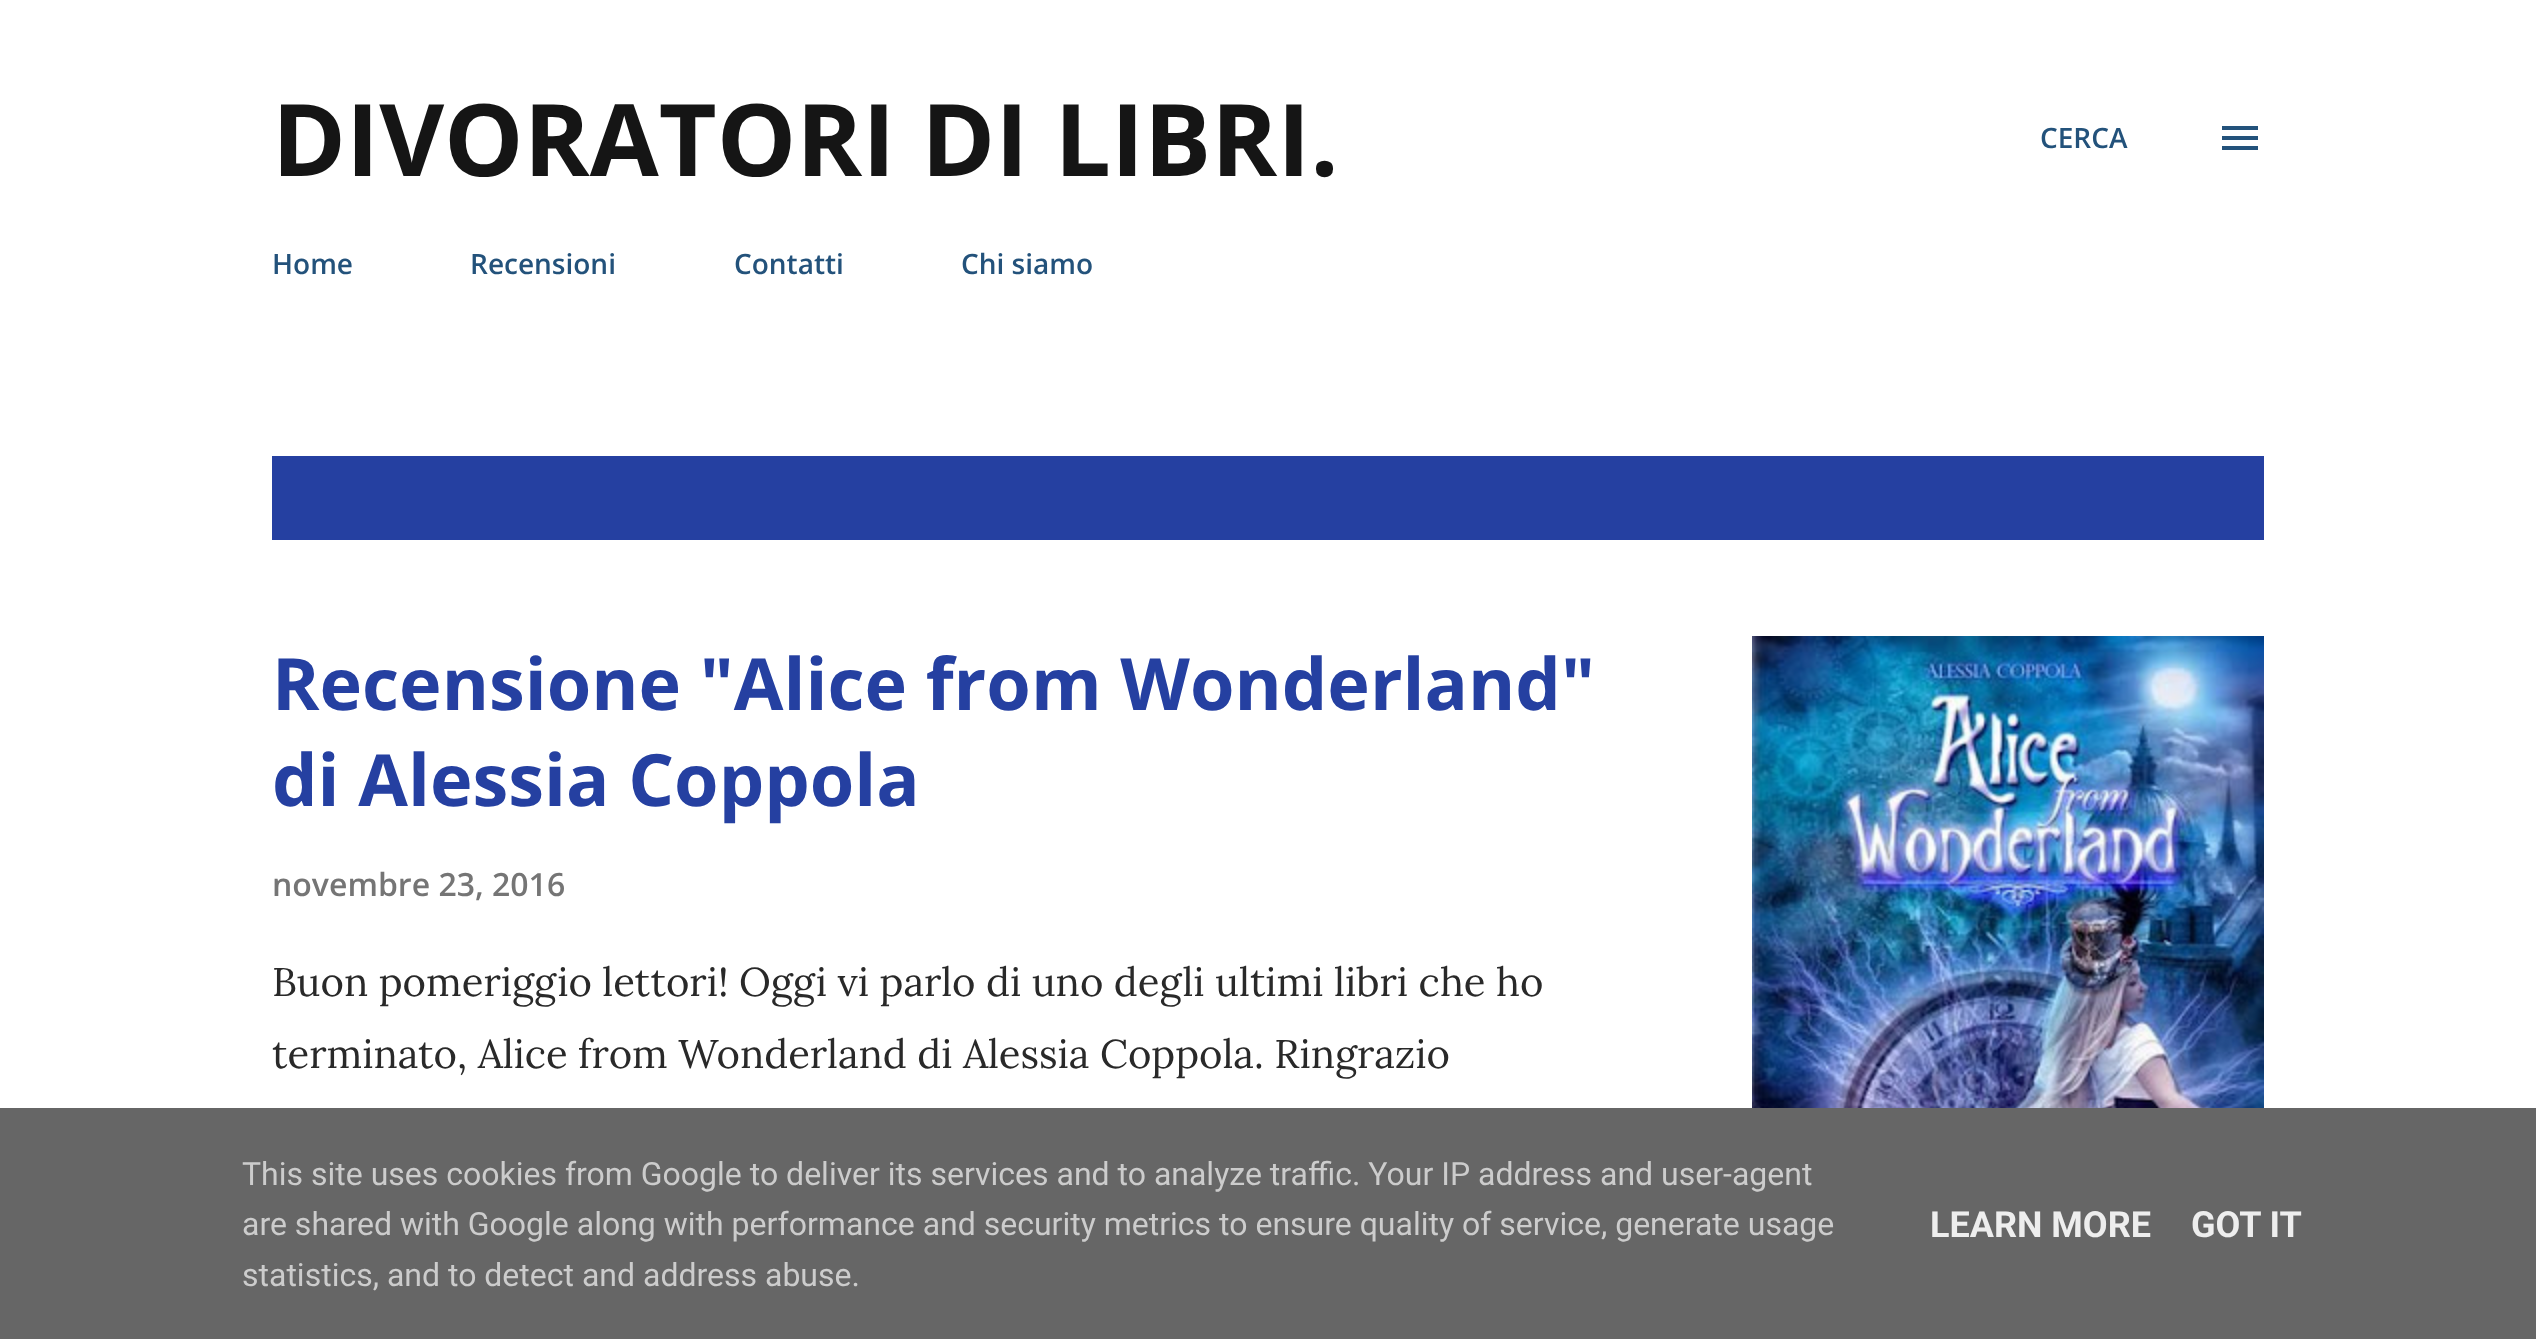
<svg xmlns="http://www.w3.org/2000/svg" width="2536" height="1339">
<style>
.a{font:bold 100px Open Sans;fill:#151515}
.b{font:600 28px Open Sans;fill:#23527b}
.c{font:bold 72px Open Sans;fill:#2540a1}
.d{font:600 32px Open Sans;fill:#757575}
.e{font:40px Lora;fill:#292929}
.f{font:32px Roboto;fill:#ccc}
.g{font:bold 36px Roboto;fill:#eee}
</style>
<rect width="100%" height="100%" fill="#fff"/>
<image href="1.png" x="2222" y="126" width="36" height="24"/>
<path fill="#2540a1" d="M272 456h1992v84H272z"/>
<image href="2.png" x="1752" y="636" width="512" height="472"/>
<path fill="#666" d="M0 1108h2536v231H0z"/>
<text class="a" x="272" y="176">DIVORATORI DI LIBRI.</text>
<text class="b" x="2040" y="148">CERCA</text>
<text class="b" x="272" y="274">Home</text>
<text class="b" x="470" y="274">Recensioni</text>
<text class="b" x="734" y="274">Contatti</text>
<text class="b" x="961" y="274">Chi siamo</text>
<text class="c" x="272" y="710">Recensione "Alice from Wonderland"</text>
<text class="c" x="272" y="806">di Alessia Coppola</text>
<text class="d" x="272" y="896">novembre 23, 2016</text>
<text class="e" x="272" y="996">Buon pomeriggio lettori! Oggi vi parlo di uno degli ultimi libri che ho</text>
<text class="e" x="272" y="1068">terminato, Alice from Wonderland di Alessia Coppola. Ringrazio</text>
<text class="f" x="242" y="1185">This site uses cookies from Google to deliver its services and to analyze traffic. Your IP address and user-agent</text>
<text class="f" x="242" y="1235">are shared with Google along with performance and security metrics to ensure quality of service, generate usage</text>
<text class="f" x="242" y="1286">statistics, and to detect and address abuse.</text>
<text class="g" x="1930" y="1237">LEARN MORE</text>
<text class="g" x="2191" y="1237">GOT IT</text>
</svg>
